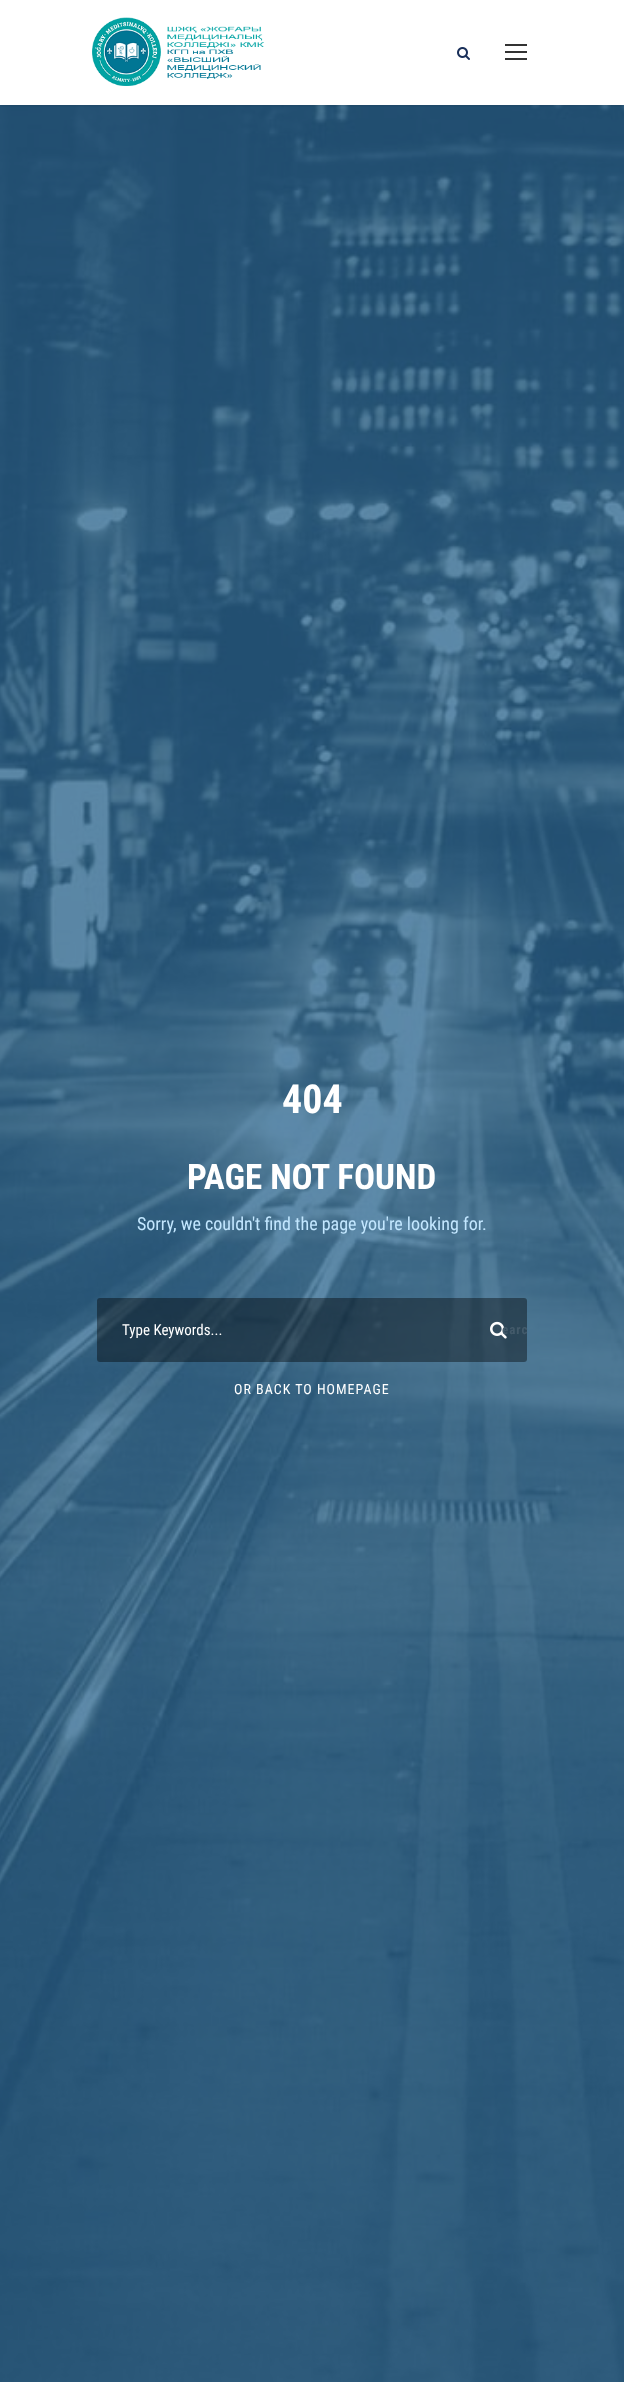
<svg xmlns="http://www.w3.org/2000/svg" width="624" height="2382">
<style>
.a{font:bold 40px Roboto Condensed;fill:#fff}
.b{font:bold 35px Roboto Condensed;fill:#fff}
.c{font:18px Roboto Condensed;fill:#c3e7ff}
.d{font:15px Roboto Condensed;fill:#fff}
.e{font:bold 13px Roboto Condensed;letter-spacing:1px;fill:#435a6a}
.f{font:14px Roboto Condensed;letter-spacing:1px;fill:#fff}
</style>
<defs>
<clipPath id="clip1"><path d="M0 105h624v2H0z"/></clipPath>
</defs>
<rect width="100%" height="100%" fill="#fff"/>
<path fill="#23618e" d="M0 105h624v2277H0z"/>
<image href="3.png" x="0" y="105" width="624" height="2277"/>
<g clip-path="url(#clip1)">
<path fill="#0000001a" filter="blur(1px)" d="M0 1h624v105H0z"/>
</g>
<image href="1.png" x="92" y="17" width="172" height="69"/>
<image href="2.png" x="457" y="47" width="13" height="13"/>
<path fill="#333" d="M505 44h22v2H505z"/>
<path fill="#333" d="M505 51h22v2H505z"/>
<path fill="#333" d="M505 58h22v2H505z"/>
<rect fill="#00000066" x="97" y="1298" width="430" height="64" rx="3"/>
<image href="4.png" x="490" y="1321" width="17" height="18"/>
<text class="a" x="282" y="1113">404</text>
<text class="b" x="187" y="1189">PAGE NOT FOUND</text>
<text class="c" x="137" y="1230">Sorry, we couldn't find the page you're looking for.</text>
<text class="d" x="122" y="1335">Type Keywords...</text>
<text class="e" x="502" y="1334">earc</text>
<text class="f" x="234" y="1394">OR BACK TO HOMEPAGE</text>
</svg>
